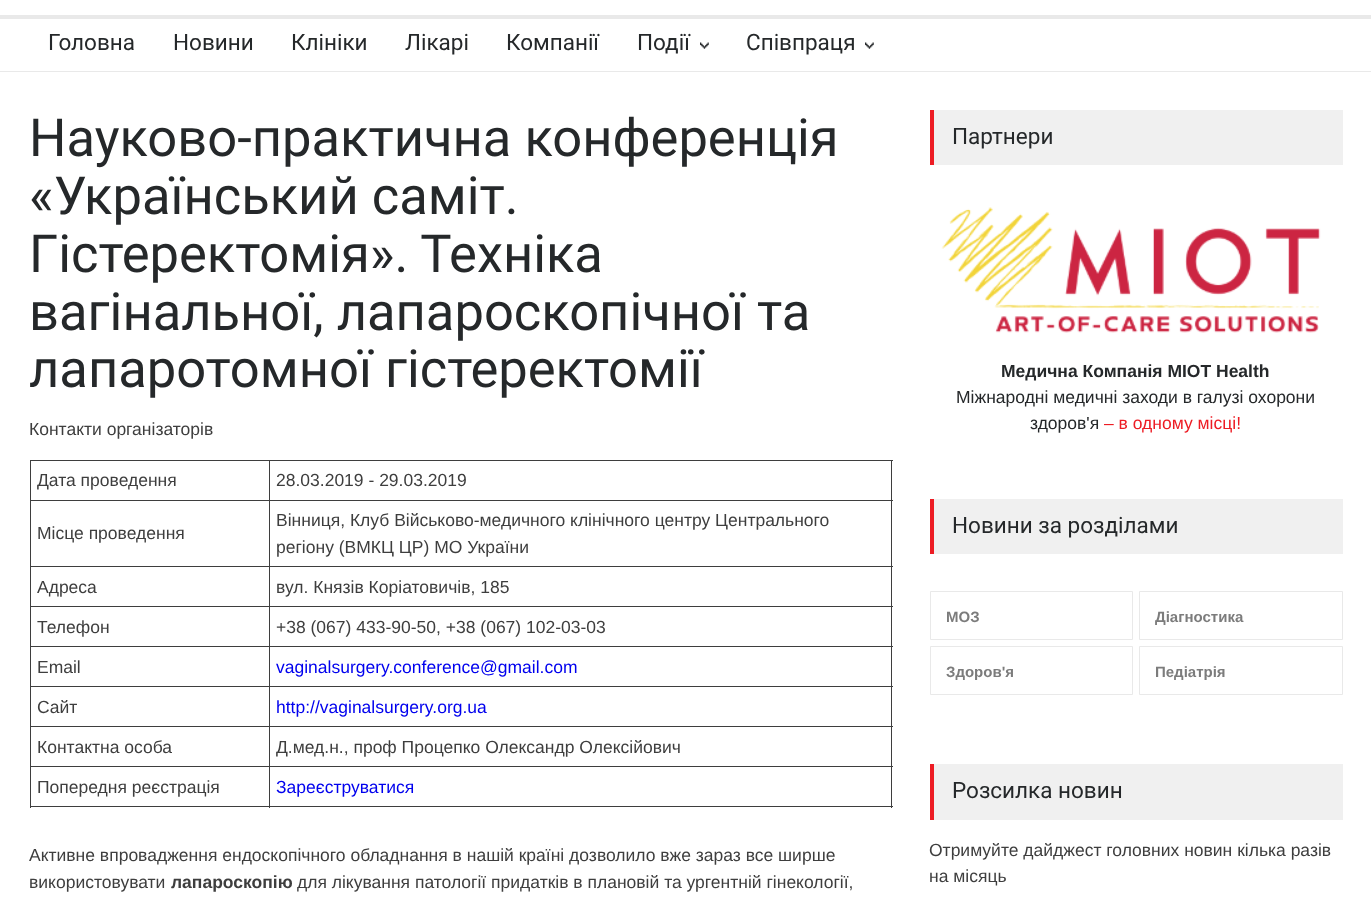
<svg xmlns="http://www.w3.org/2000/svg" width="1371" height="902">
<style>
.a{font:22.5px Roboto;fill:#25282a}
.b{font:52.5px Roboto;fill:#25282a}
.c{font:17.5px Liberation Sans;fill:#3e3e3e}
.d{font:17.5px Liberation Sans;fill:#00e}
.e{font:bold 17.5px Liberation Sans;fill:#3e3e3e}
.f{font:bold 17.5px Liberation Sans;fill:#25282a}
.g{font:17.5px Liberation Sans;fill:#25282a}
.h{font:17.5px Liberation Sans;fill:#ed1c24}
.i{font:bold 15px Liberation Sans;fill:#7c7c7c}
</style>
<rect width="100%" height="100%" fill="#fff"/>
<path fill="#e9e9e9" d="M0 15h1371v4H0z"/>
<path fill="#e9e9e9" d="M0 71h1371v1H0z"/>
<path fill="#fff" d="M30 71h863v1H30z"/>
<path fill="#e9e9e9" d="M30 71h863v1H30z"/>
<image href="1.png" x="700" y="42" width="9" height="7"/>
<image href="2.png" x="865" y="42" width="9" height="7"/>
<path fill="#3e3e3e" d="M30 460h863v1H30z"/>
<path fill="#3e3e3e" d="M891 460h1v348H891z"/>
<path fill="#3e3e3e" d="M30 806h863v1H30z"/>
<path fill="#3e3e3e" d="M30 460h1v348H30z"/>
<path fill="#3e3e3e" d="M269 500h624v1H269z"/>
<path fill="#3e3e3e" d="M269 566h624v1H269z"/>
<path fill="#3e3e3e" d="M269 606h624v1H269z"/>
<path fill="#3e3e3e" d="M269 646h624v1H269z"/>
<path fill="#3e3e3e" d="M269 686h624v1H269z"/>
<path fill="#3e3e3e" d="M269 726h624v1H269z"/>
<path fill="#3e3e3e" d="M269 766h624v1H269z"/>
<path fill="#3e3e3e" d="M269 766h1v42H269z"/>
<path fill="#3e3e3e" d="M30 766h240v1H30z"/>
<path fill="#3e3e3e" d="M269 726h1v42H269z"/>
<path fill="#3e3e3e" d="M30 726h240v1H30z"/>
<path fill="#3e3e3e" d="M269 686h1v42H269z"/>
<path fill="#3e3e3e" d="M30 686h240v1H30z"/>
<path fill="#3e3e3e" d="M269 646h1v42H269z"/>
<path fill="#3e3e3e" d="M30 646h240v1H30z"/>
<path fill="#3e3e3e" d="M269 606h1v42H269z"/>
<path fill="#3e3e3e" d="M30 606h240v1H30z"/>
<path fill="#3e3e3e" d="M269 566h1v42H269z"/>
<path fill="#3e3e3e" d="M30 566h240v1H30z"/>
<path fill="#3e3e3e" d="M269 500h1v68H269z"/>
<path fill="#3e3e3e" d="M30 500h240v1H30z"/>
<path fill="#3e3e3e" d="M269 460h1v41H269z"/>
<path fill="#f0f0f0" d="M934 110h409v55H934z"/>
<path fill="#ed1c24" d="M930 110h4v55H930z"/>
<image href="3.png" x="941" y="207" width="380" height="126"/>
<path fill="#f0f0f0" d="M934 499h409v55H934z"/>
<path fill="#ed1c24" d="M930 499h4v55H930z"/>
<path fill="none" stroke="#e9e9e9" d="M930.5 591.5h202v48H930.5z"/>
<path fill="none" stroke="#e9e9e9" d="M1139.5 591.5h203v48H1139.5z"/>
<path fill="none" stroke="#e9e9e9" d="M930.5 646.5h202v48H930.5z"/>
<path fill="none" stroke="#e9e9e9" d="M1139.5 646.5h203v48H1139.5z"/>
<path fill="#f0f0f0" d="M934 764h409v56H934z"/>
<path fill="#ed1c24" d="M930 764h4v56H930z"/>
<text class="a" x="48" y="50">Головна</text>
<text class="a" x="173" y="50">Новини</text>
<text class="a" x="291" y="50">Клініки</text>
<text class="a" x="405" y="50">Лікарі</text>
<text class="a" x="506" y="50">Компанії</text>
<text class="a" x="637" y="50">Події</text>
<text class="a" x="746" y="50">Співпраця</text>
<text class="b" x="29" y="156">Науково-практична конференція</text>
<text class="b" x="29" y="214">«Український саміт.</text>
<text class="b" x="29" y="272">Гістеректомія». Техніка</text>
<text class="b" x="29" y="330">вагінальної, лапароскопічної та</text>
<text class="b" x="29" y="387">лапаротомної гістеректомії</text>
<text class="c" x="29" y="435">Контакти організаторів</text>
<text class="c" x="37" y="486">Дата проведення</text>
<text class="c" x="276" y="486">28.03.2019 - 29.03.2019</text>
<text class="c" x="37" y="539">Місце проведення</text>
<text class="c" x="276" y="526">Вінниця, Клуб Військово-медичного клінічного центру Центрального</text>
<text class="c" x="276" y="553">регіону (ВМКЦ ЦР) МО України</text>
<text class="c" x="37" y="593">Адреса</text>
<text class="c" x="276" y="593">вул. Князів Коріатовичів, 185</text>
<text class="c" x="37" y="633">Телефон</text>
<text class="c" x="276" y="633">+38 (067) 433-90-50, +38 (067) 102-03-03</text>
<text class="c" x="37" y="673">Email</text>
<text class="d" x="276" y="673">vaginalsurgery.conference@gmail.com</text>
<text class="c" x="37" y="713">Сайт</text>
<text class="d" x="276" y="713">http://vaginalsurgery.org.ua</text>
<text class="c" x="37" y="753">Контактна особа</text>
<text class="c" x="276" y="753">Д.мед.н., проф Процепко Олександр Олексійович</text>
<text class="c" x="37" y="793">Попередня реєстрація</text>
<text class="d" x="276" y="793">Зареєструватися</text>
<text class="c" x="29" y="861">Активне впровадження ендоскопічного обладнання в нашій країні дозволило вже зараз все ширше</text>
<text class="c" x="29" y="888">використовувати</text>
<text class="e" x="171" y="888">лапароскопію</text>
<text class="c" x="297" y="888">для лікування патології придатків в плановій та ургентній гінекології,</text>
<text class="a" x="952" y="144">Партнери</text>
<text class="f" x="1001" y="377">Медична Компанія МІОТ Health</text>
<text class="g" x="956" y="403">Міжнародні медичні заходи в галузі охорони</text>
<text class="g" x="1030" y="429">здоров'я</text>
<text class="h" x="1104" y="429">– в одному місці!</text>
<text class="a" x="952" y="533">Новини за розділами</text>
<text class="i" x="946" y="622">МОЗ</text>
<text class="i" x="1155" y="622">Діагностика</text>
<text class="i" x="946" y="677">Здоров'я</text>
<text class="i" x="1155" y="677">Педіатрія</text>
<text class="a" x="952" y="798">Розсилка новин</text>
<text class="c" x="929" y="856">Отримуйте дайджест головних новин кілька разів</text>
<text class="c" x="929" y="882">на місяць</text>
</svg>
